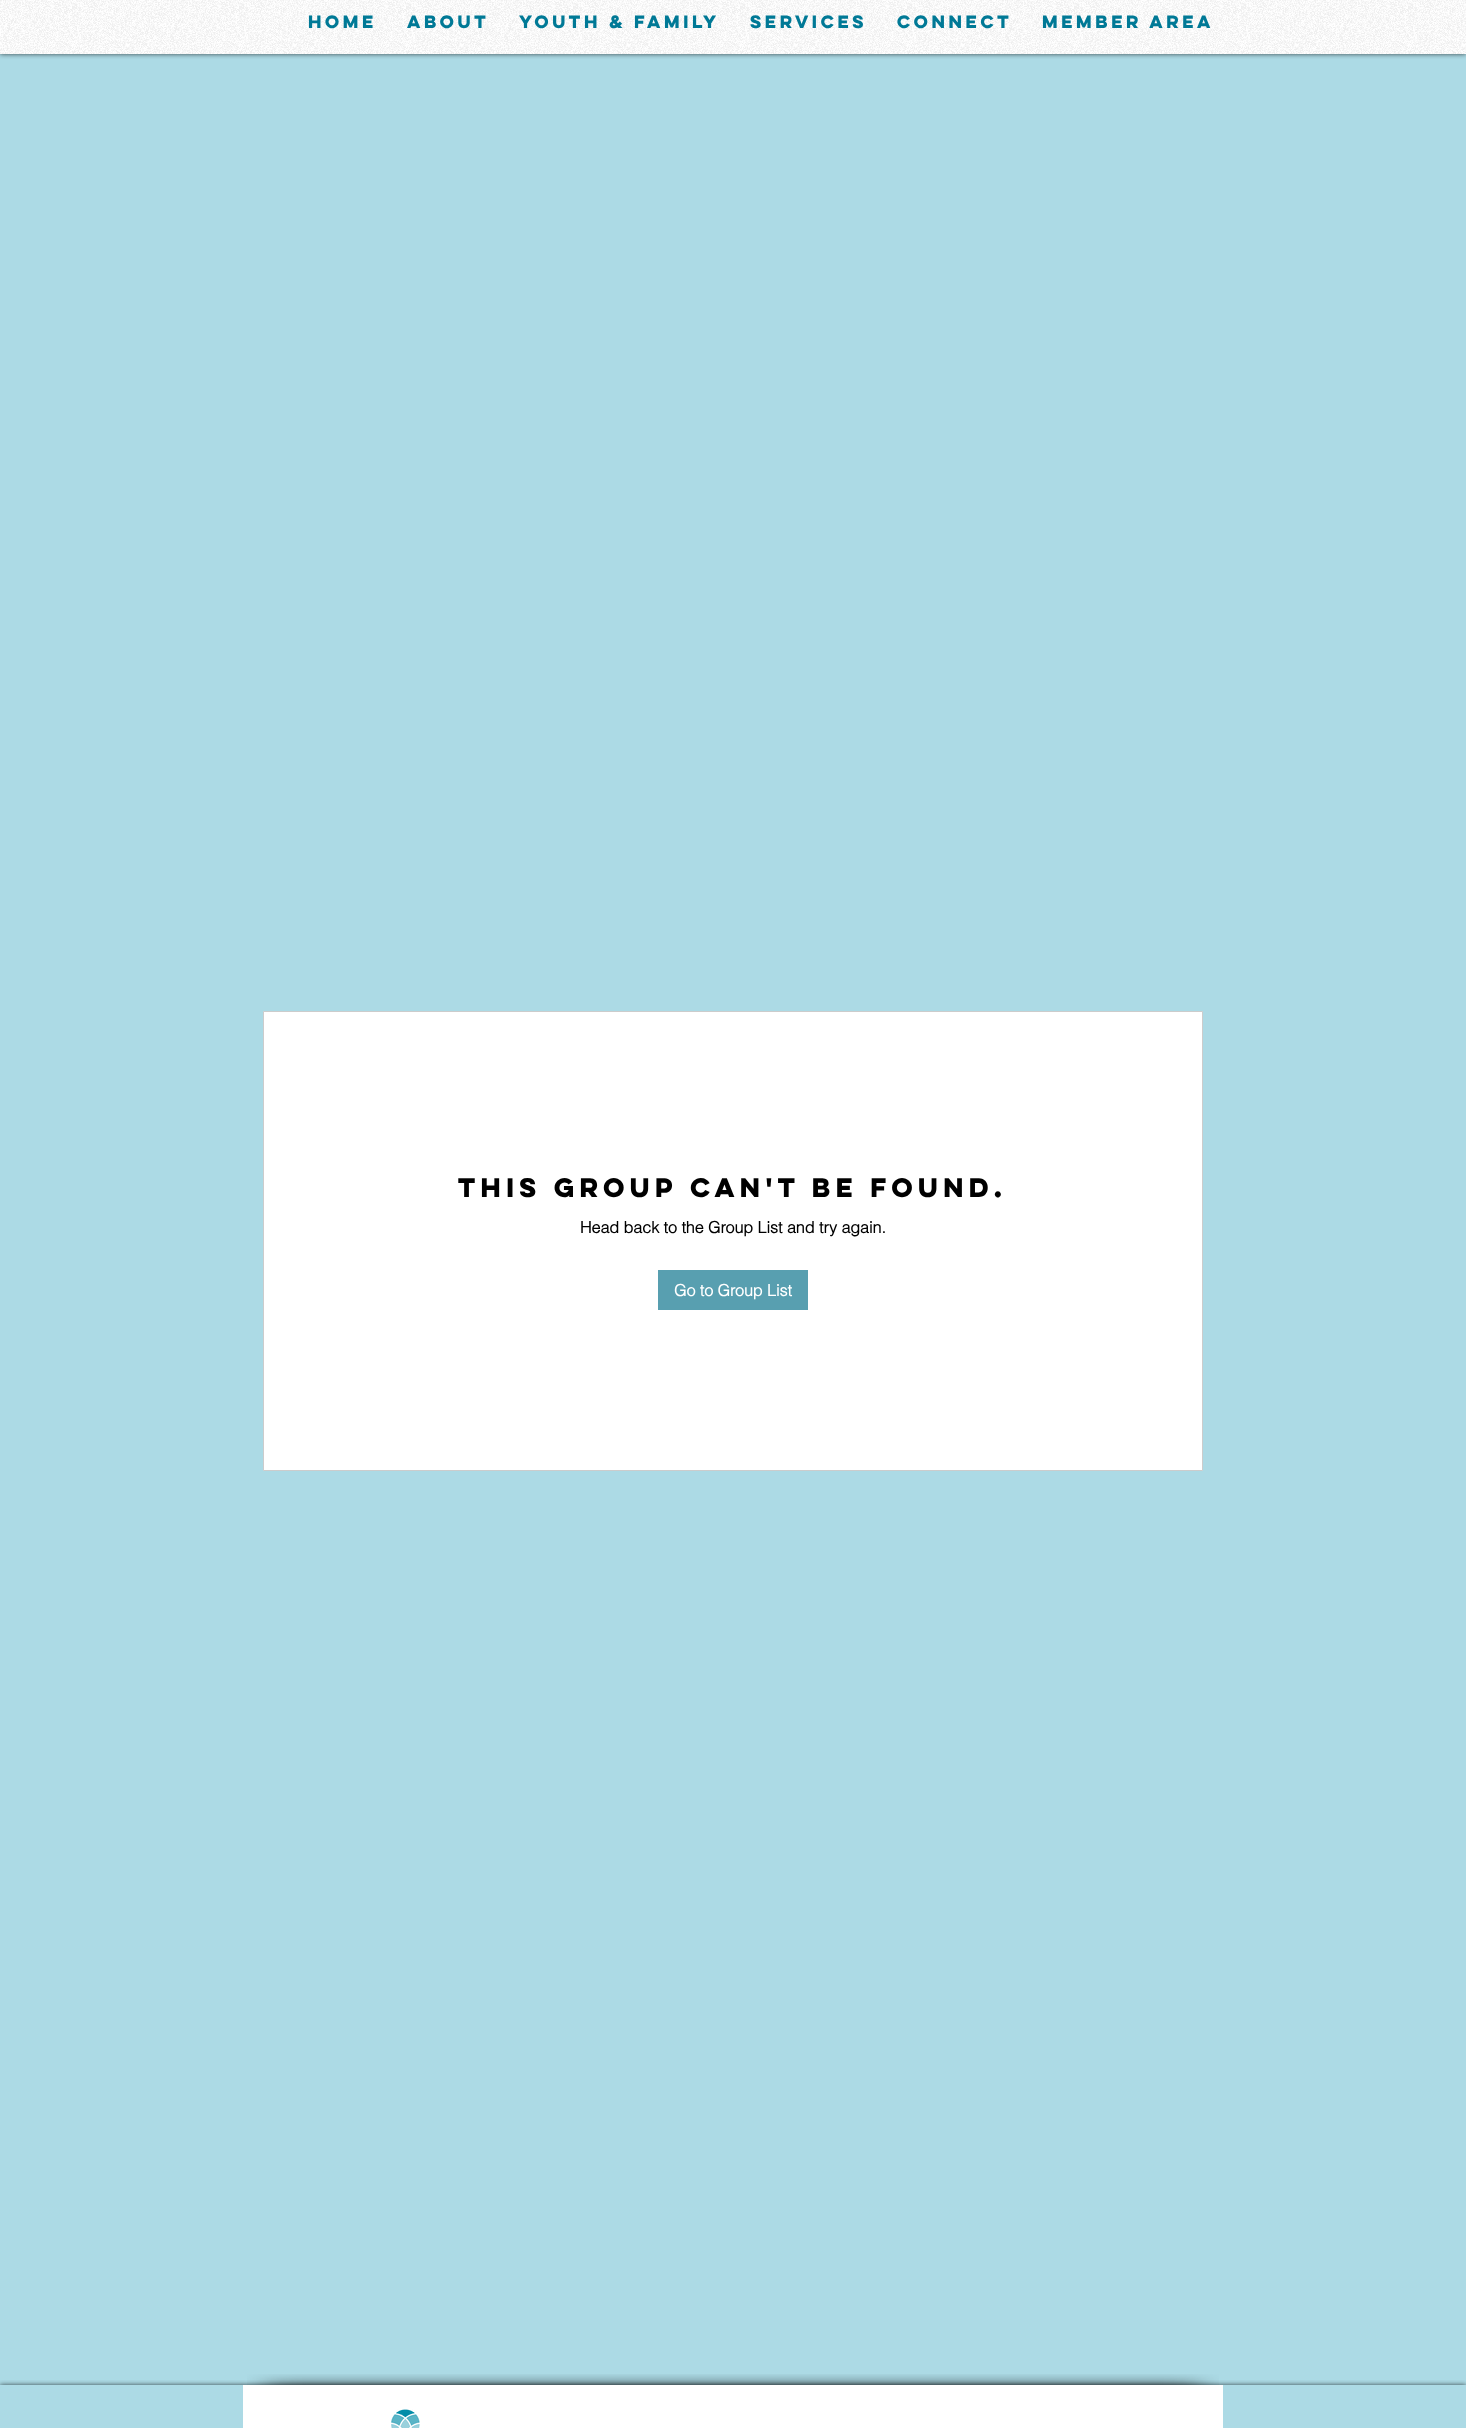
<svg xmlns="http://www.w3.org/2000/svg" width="1466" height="2428">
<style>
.a{font:bold 16px 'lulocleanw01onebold';fill:#007996}
.b{font:bold 24px 'lulocleanw01onebold';fill:#000}
.c{font:bold 16px helvetica;fill:#000}
.d{font:bold 16px helvetica;fill:#fff}
</style>
<defs>
<clipPath id="clip1"><path d="M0 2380h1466v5H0z"/></clipPath>
</defs>
<rect width="100%" height="100%" fill="#acdae5"/>
<path fill="#000000b3" filter="blur(2.5px)" d="M0 0h1466v54H0z"/>
<path fill="#fff" d="M0 0h1466v54H0z"/>
<image href="1.png" x="0" y="0" width="1466" height="54"/>
<path fill="#fff" stroke="#ccc" d="M263.5 1011.5h939v459H263.5z"/>
<path fill="#589fb0" d="M658 1270h150v40H658z"/>
<g clip-path="url(#clip1)">
<path fill="#000000b3" filter="blur(2.5px)" d="M0 2385h1466v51H0z"/>
</g>
<path fill="#fff" d="M243 2385h980v43H243z"/>
<image href="2.png" x="247" y="2374" width="96" height="11"/>
<image href="3.png" x="343" y="2374" width="780" height="11"/>
<image href="4.png" x="1123" y="2374" width="96" height="11"/>
<image href="5.png" x="391" y="2409" width="29" height="19"/>
<text class="a" x="308" y="28">Home</text>
<text class="a" x="407" y="28">About</text>
<text class="a" x="519" y="28">Youth &amp; Family</text>
<text class="a" x="750" y="28">Services</text>
<text class="a" x="897" y="28">Connect</text>
<text class="a" x="1042" y="28">Member Area</text>
<text class="b" x="458" y="1197">This group can't be found.</text>
<text class="c" x="580" y="1233">Head back to the Group List and try again.</text>
<text class="d" x="674" y="1296">Go to Group List</text>
</svg>
